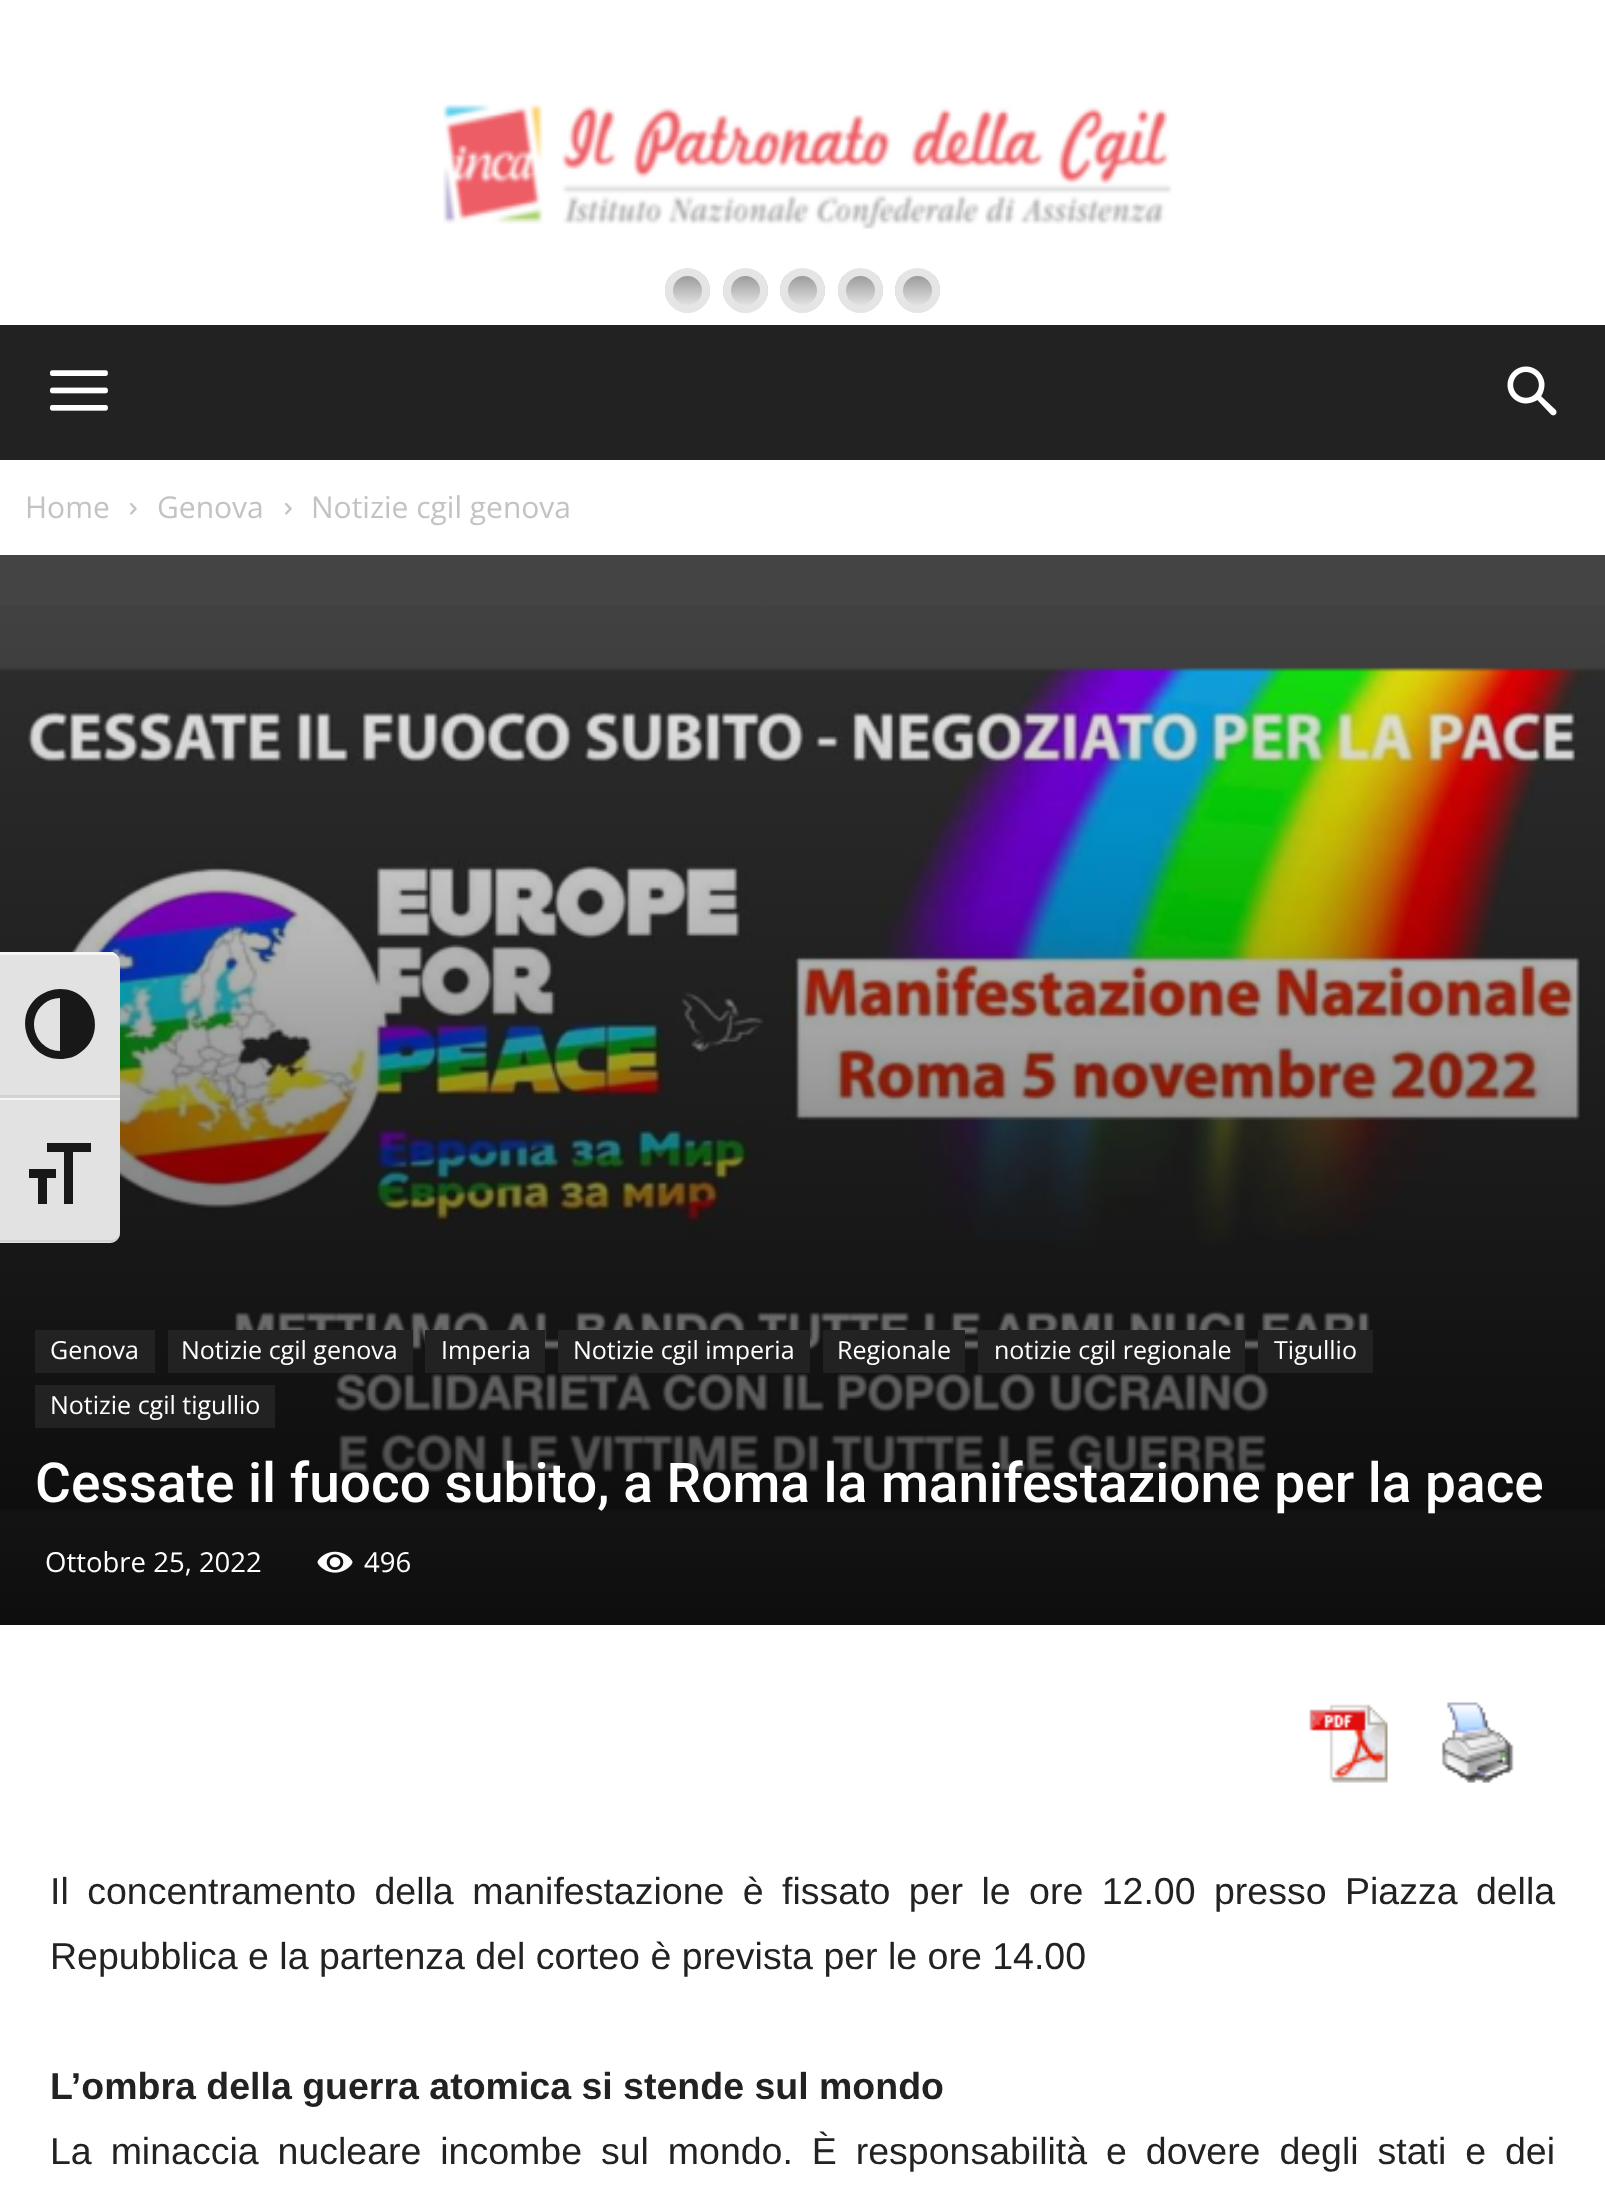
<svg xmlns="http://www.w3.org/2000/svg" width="1605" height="2212">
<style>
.a{font:30px Open Sans;fill:#c3c3c3}
.b{font:25px Open Sans;fill:#fff}
.c{font:500 55px Roboto;fill:#fff}
.d{font:27.5px Open Sans;fill:#fff}
.e{font:37.5px Liberation Sans;fill:#222}
.f{font:bold 37.5px Liberation Sans;fill:#222}
</style>
<defs>
<clipPath id="clip1"><rect x="665" y="268" width="45" height="45" rx="22.5"/></clipPath>
<linearGradient id="g1" gradientUnits="userSpaceOnUse" x1="688" y1="275" x2="688" y2="305"><stop offset="0" stop-color="#999"/><stop offset="1" stop-color="#e1e1e1"/></linearGradient>
<clipPath id="clip2"><rect x="723" y="268" width="45" height="45" rx="22.5"/></clipPath>
<linearGradient id="g2" gradientUnits="userSpaceOnUse" x1="745" y1="275" x2="745" y2="305"><stop offset="0" stop-color="#999"/><stop offset="1" stop-color="#e1e1e1"/></linearGradient>
<clipPath id="clip3"><rect x="780" y="268" width="45" height="45" rx="22.5"/></clipPath>
<linearGradient id="g3" gradientUnits="userSpaceOnUse" x1="803" y1="275" x2="803" y2="305"><stop offset="0" stop-color="#999"/><stop offset="1" stop-color="#e1e1e1"/></linearGradient>
<clipPath id="clip4"><rect x="838" y="268" width="45" height="45" rx="22.5"/></clipPath>
<linearGradient id="g4" gradientUnits="userSpaceOnUse" x1="860" y1="275" x2="860" y2="305"><stop offset="0" stop-color="#999"/><stop offset="1" stop-color="#e1e1e1"/></linearGradient>
<clipPath id="clip5"><rect x="895" y="268" width="45" height="45" rx="22.5"/></clipPath>
<linearGradient id="g5" gradientUnits="userSpaceOnUse" x1="918" y1="275" x2="918" y2="305"><stop offset="0" stop-color="#999"/><stop offset="1" stop-color="#e1e1e1"/></linearGradient>
<linearGradient id="g6" gradientUnits="userSpaceOnUse" x1="803" y1="555" x2="803" y2="1625"><stop offset="0" stop-color="#000" stop-opacity="0"/><stop offset="1" stop-color="#000" stop-opacity="0.8"/></linearGradient>
</defs>
<rect width="100%" height="100%" fill="#fff"/>
<image href="1.png" x="443" y="103" width="729" height="126"/>
<g clip-path="url(#clip1)">
<path fill="url(#g1)" d="M665 275h45v30H665z"/>
</g>
<circle fill="none" stroke="#e5e5e5" stroke-width="8" cx="687.5" cy="290.5" r="18.5"/>
<g clip-path="url(#clip2)">
<path fill="url(#g2)" d="M723 275h45v30H723z"/>
</g>
<circle fill="none" stroke="#e5e5e5" stroke-width="8" cx="745.5" cy="290.5" r="18.5"/>
<g clip-path="url(#clip3)">
<path fill="url(#g3)" d="M780 275h45v30H780z"/>
</g>
<circle fill="none" stroke="#e5e5e5" stroke-width="8" cx="802.5" cy="290.5" r="18.5"/>
<g clip-path="url(#clip4)">
<path fill="url(#g4)" d="M838 275h45v30H838z"/>
</g>
<circle fill="none" stroke="#e5e5e5" stroke-width="8" cx="860.5" cy="290.5" r="18.5"/>
<g clip-path="url(#clip5)">
<path fill="url(#g5)" d="M895 275h45v30H895z"/>
</g>
<circle fill="none" stroke="#e5e5e5" stroke-width="8" cx="917.5" cy="290.5" r="18.5"/>
<path fill="#222" d="M0 325h1605v135H0z"/>
<image href="2.png" x="50" y="370" width="58" height="41"/>
<image href="3.png" x="1507" y="366" width="50" height="50"/>
<image href="4.png" x="130" y="503" width="7" height="12"/>
<image href="4.png" x="285" y="503" width="7" height="12"/>
<path fill="#444" d="M0 555h1605v1070H0z"/>
<image href="5.png" x="0" y="667" width="1605" height="845"/>
<path fill="url(#g6)" d="M0 605h1605v1020H0z"/>
<path fill="#222" d="M35 1330h120v43H35z"/>
<path fill="#222" d="M168 1330h245v43H168z"/>
<path fill="#222" d="M425 1330h120v43H425z"/>
<path fill="#222" d="M558 1330h252v43H558z"/>
<path fill="#222" d="M823 1330h142v43H823z"/>
<path fill="#222" d="M978 1330h267v43H978z"/>
<path fill="#222" d="M1258 1330h115v43H1258z"/>
<path fill="#222" d="M35 1385h240v43H35z"/>
<image href="6.png" x="317" y="1551" width="36" height="22"/>
<image href="7.png" x="1309" y="1704" width="79" height="79"/>
<image href="8.png" x="1441" y="1702" width="73" height="81"/>
<path fill="#e2e2e2" d="M0 953h110c5.5 0 10 4.5 10 10v135h-120z"/>
<path fill="#f5f5f5" d="M0 955h110c6 0 10 3 10 7c0-4-3-8-7-10h-113z"/>
<path fill="#d2d2d2" d="M0 1095h120v3H0z"/>
<path fill="#181818" d="M60 989c-8 0-15 3-21 7c-27 20-12 63 21 63c8 0 15-2 21-7c27-20 12-63-21-63zm-26 35c0-14 12-26 26-26v53c-14 0-26-12-26-27z"/>
<path fill="#e2e2e2" d="M0 1098h120v135c0 5.5-4.5 10-10 10h-110z"/>
<path fill="#f5f5f5" d="M0 1098h120v2H0z"/>
<path fill="#d2d2d2" d="M0 1240v2h110c6 0 10-4 10-10c0 5-4 8-10 8z"/>
<path fill="#181818" d="M29 1169h27v9h-9v26h-9v-26h-9zm62-17h-18v52h-9v-52h-17v-9h44z"/>
<text class="a" x="25" y="518">Home</text>
<text class="a" x="157" y="518">Genova</text>
<text class="a" x="311" y="518">Notizie cgil genova</text>
<text class="b" x="50" y="1359">Genova</text>
<text class="b" x="181" y="1359">Notizie cgil genova</text>
<text class="b" x="441" y="1359">Imperia</text>
<text class="b" x="573" y="1359">Notizie cgil imperia</text>
<text class="b" x="837" y="1359">Regionale</text>
<text class="b" x="994" y="1359">notizie cgil regionale</text>
<text class="b" x="1274" y="1359">Tigullio</text>
<text class="b" x="50" y="1414">Notizie cgil tigullio</text>
<text class="c" x="35" y="1502">Cessate il fuoco subito, a Roma la manifestazione per la pace</text>
<text class="d" x="45" y="1572">Ottobre 25, 2022</text>
<text class="d" x="364" y="1572">496</text>
<text class="e" x="50" y="1904" word-spacing="8">Il concentramento della manifestazione è fissato per le ore 12.00 presso Piazza della</text>
<text class="e" x="50" y="1969">Repubblica e la partenza del corteo è prevista per le ore 14.00</text>
<text class="f" x="50" y="2099">L’ombra della guerra atomica si stende sul mondo</text>
<text class="e" x="50" y="2164" word-spacing="8.5">La minaccia nucleare incombe sul mondo. È responsabilità e dovere degli stati e dei</text>
</svg>
